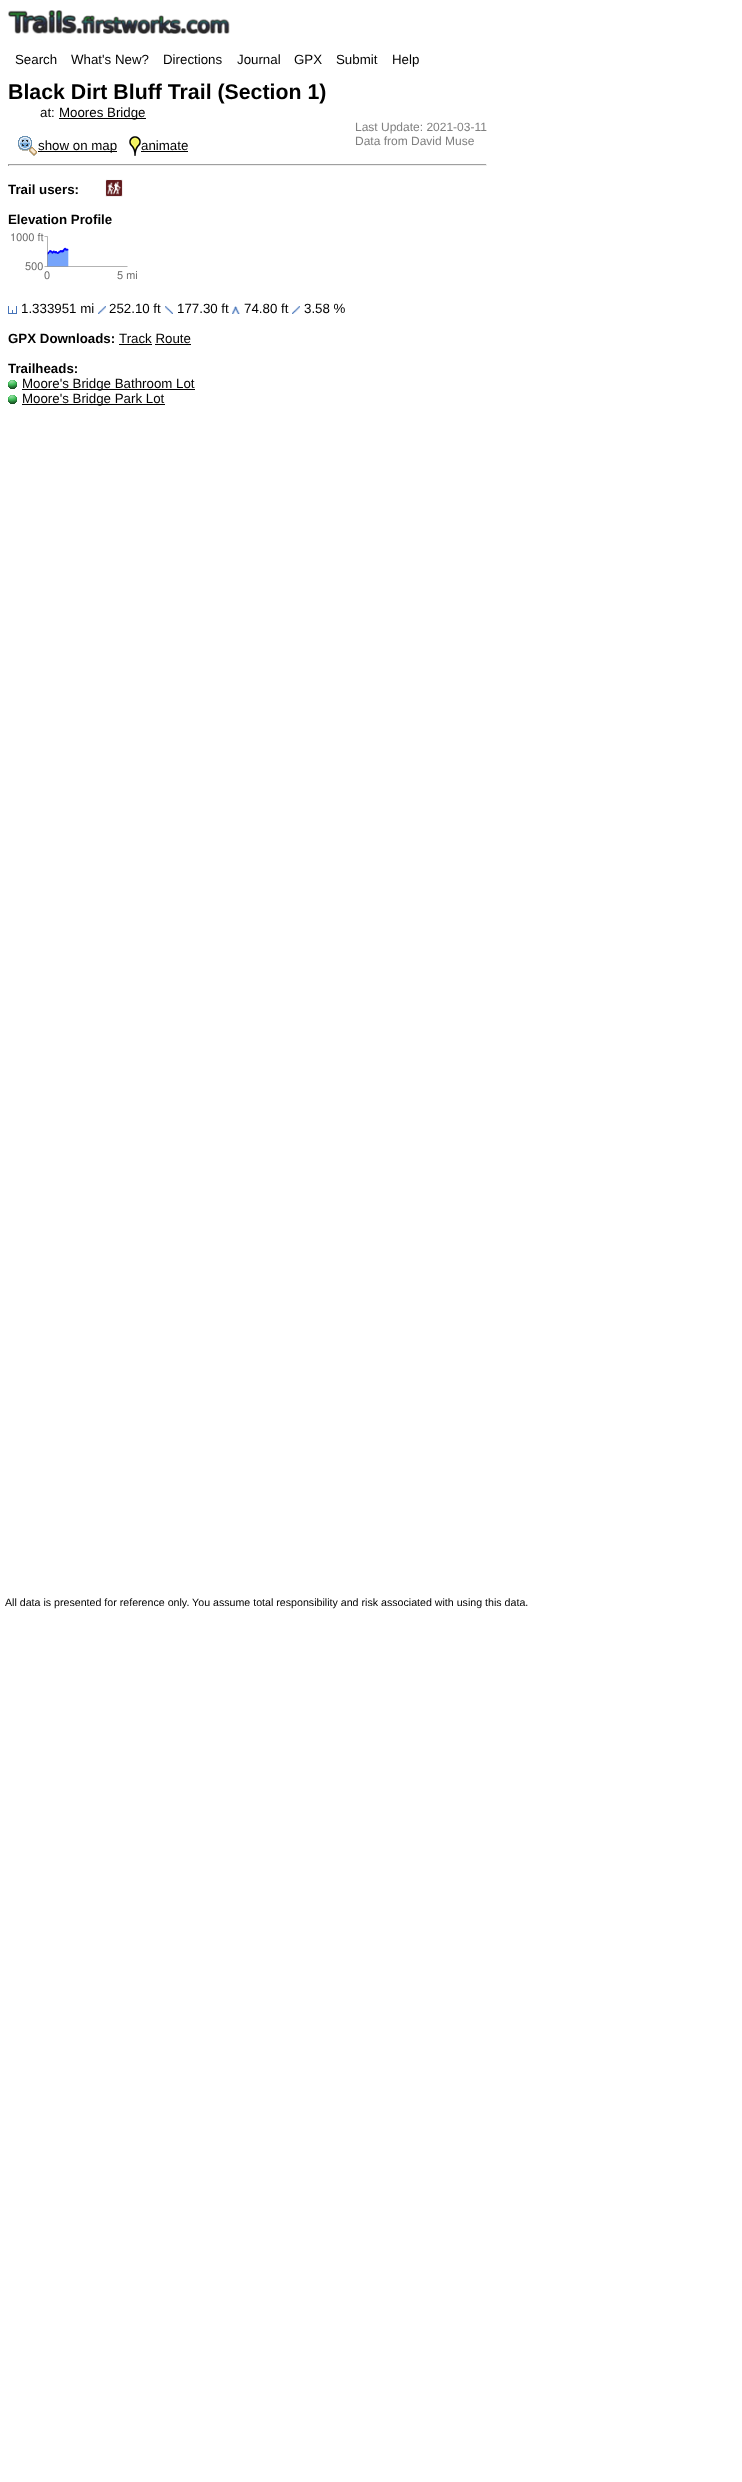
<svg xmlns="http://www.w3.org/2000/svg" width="742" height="2482">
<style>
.a{font:13.3px Liberation Sans;fill:#000}
.b{font:bold 21.3px Liberation Sans;fill:#000}
.c{font:12px Liberation Sans;fill:#808080}
.d{font:bold 13.3px Liberation Sans;fill:#000}
.e{font:10.65px Liberation Sans;fill:#000}
</style>
<rect width="100%" height="100%" fill="#fff"/>
<image href="1.png" x="8" y="10" width="222" height="24"/>
<path fill="#000" d="M59 118h87v1H59z"/>
<image href="2.png" x="18" y="136" width="19" height="20"/>
<path fill="#000" d="M38 151h79v1H38z"/>
<image href="3.png" x="129" y="136" width="12" height="20"/>
<path fill="#000" d="M141 151h47v1H141z"/>
<path fill="#9f9f9f" d="M8 164h479v1H8z"/>
<path fill="#eee" d="M486 164h1v2H486z"/>
<path fill="#eee" d="M8 165h479v1H8z"/>
<path fill="#9f9f9f" d="M8 164h1v2H8z"/>
<image href="4.png" x="105" y="179" width="18" height="18"/>
<image href="5.png" x="11" y="233" width="126" height="47"/>
<image href="6.png" x="8" y="306" width="9" height="8"/>
<image href="7.png" x="98" y="306" width="8" height="8"/>
<image href="8.png" x="165" y="306" width="8" height="8"/>
<image href="9.png" x="232" y="306" width="8" height="8"/>
<image href="7.png" x="292" y="306" width="8" height="8"/>
<path fill="#000" d="M119 344h33v1H119z"/>
<path fill="#000" d="M155 344h36v1H155z"/>
<image href="10.png" x="8" y="380" width="9" height="9"/>
<path fill="#000" d="M22 389h173v1H22z"/>
<image href="10.png" x="8" y="395" width="9" height="9"/>
<path fill="#000" d="M22 404h143v1H22z"/>
<text class="a" x="15" y="64">Search</text>
<text class="a" x="71" y="64">What's New?</text>
<text class="a" x="163" y="64">Directions</text>
<text class="a" x="237" y="64">Journal</text>
<text class="a" x="294" y="64">GPX</text>
<text class="a" x="336" y="64">Submit</text>
<text class="a" x="392" y="64">Help</text>
<text class="b" x="8" y="99">Black Dirt Bluff Trail (Section 1)</text>
<text class="a" x="40" y="117">at:</text>
<text class="a" x="59" y="117">Moores Bridge</text>
<text class="a" x="38" y="150">show on map</text>
<text class="a" x="141" y="150">animate</text>
<text class="c" x="355" y="131">Last Update: 2021-03-11</text>
<text class="c" x="355" y="145">Data from David Muse</text>
<text class="d" x="8" y="194">Trail users:</text>
<text class="d" x="8" y="224">Elevation Profile</text>
<text class="a" x="21" y="313">1.333951 mi</text>
<text class="a" x="109" y="313">252.10 ft</text>
<text class="a" x="177" y="313">177.30 ft</text>
<text class="a" x="244" y="313">74.80 ft</text>
<text class="a" x="304" y="313">3.58 %</text>
<text class="d" x="8" y="343">GPX Downloads:</text>
<text class="a" x="119" y="343">Track Route</text>
<text class="d" x="8" y="373">Trailheads:</text>
<text class="a" x="22" y="388">Moore's Bridge Bathroom Lot</text>
<text class="a" x="22" y="403">Moore's Bridge Park Lot</text>
<text class="e" x="5" y="1606">All data is presented for reference only. You assume total responsibility and risk associated with using this data.</text>
</svg>
